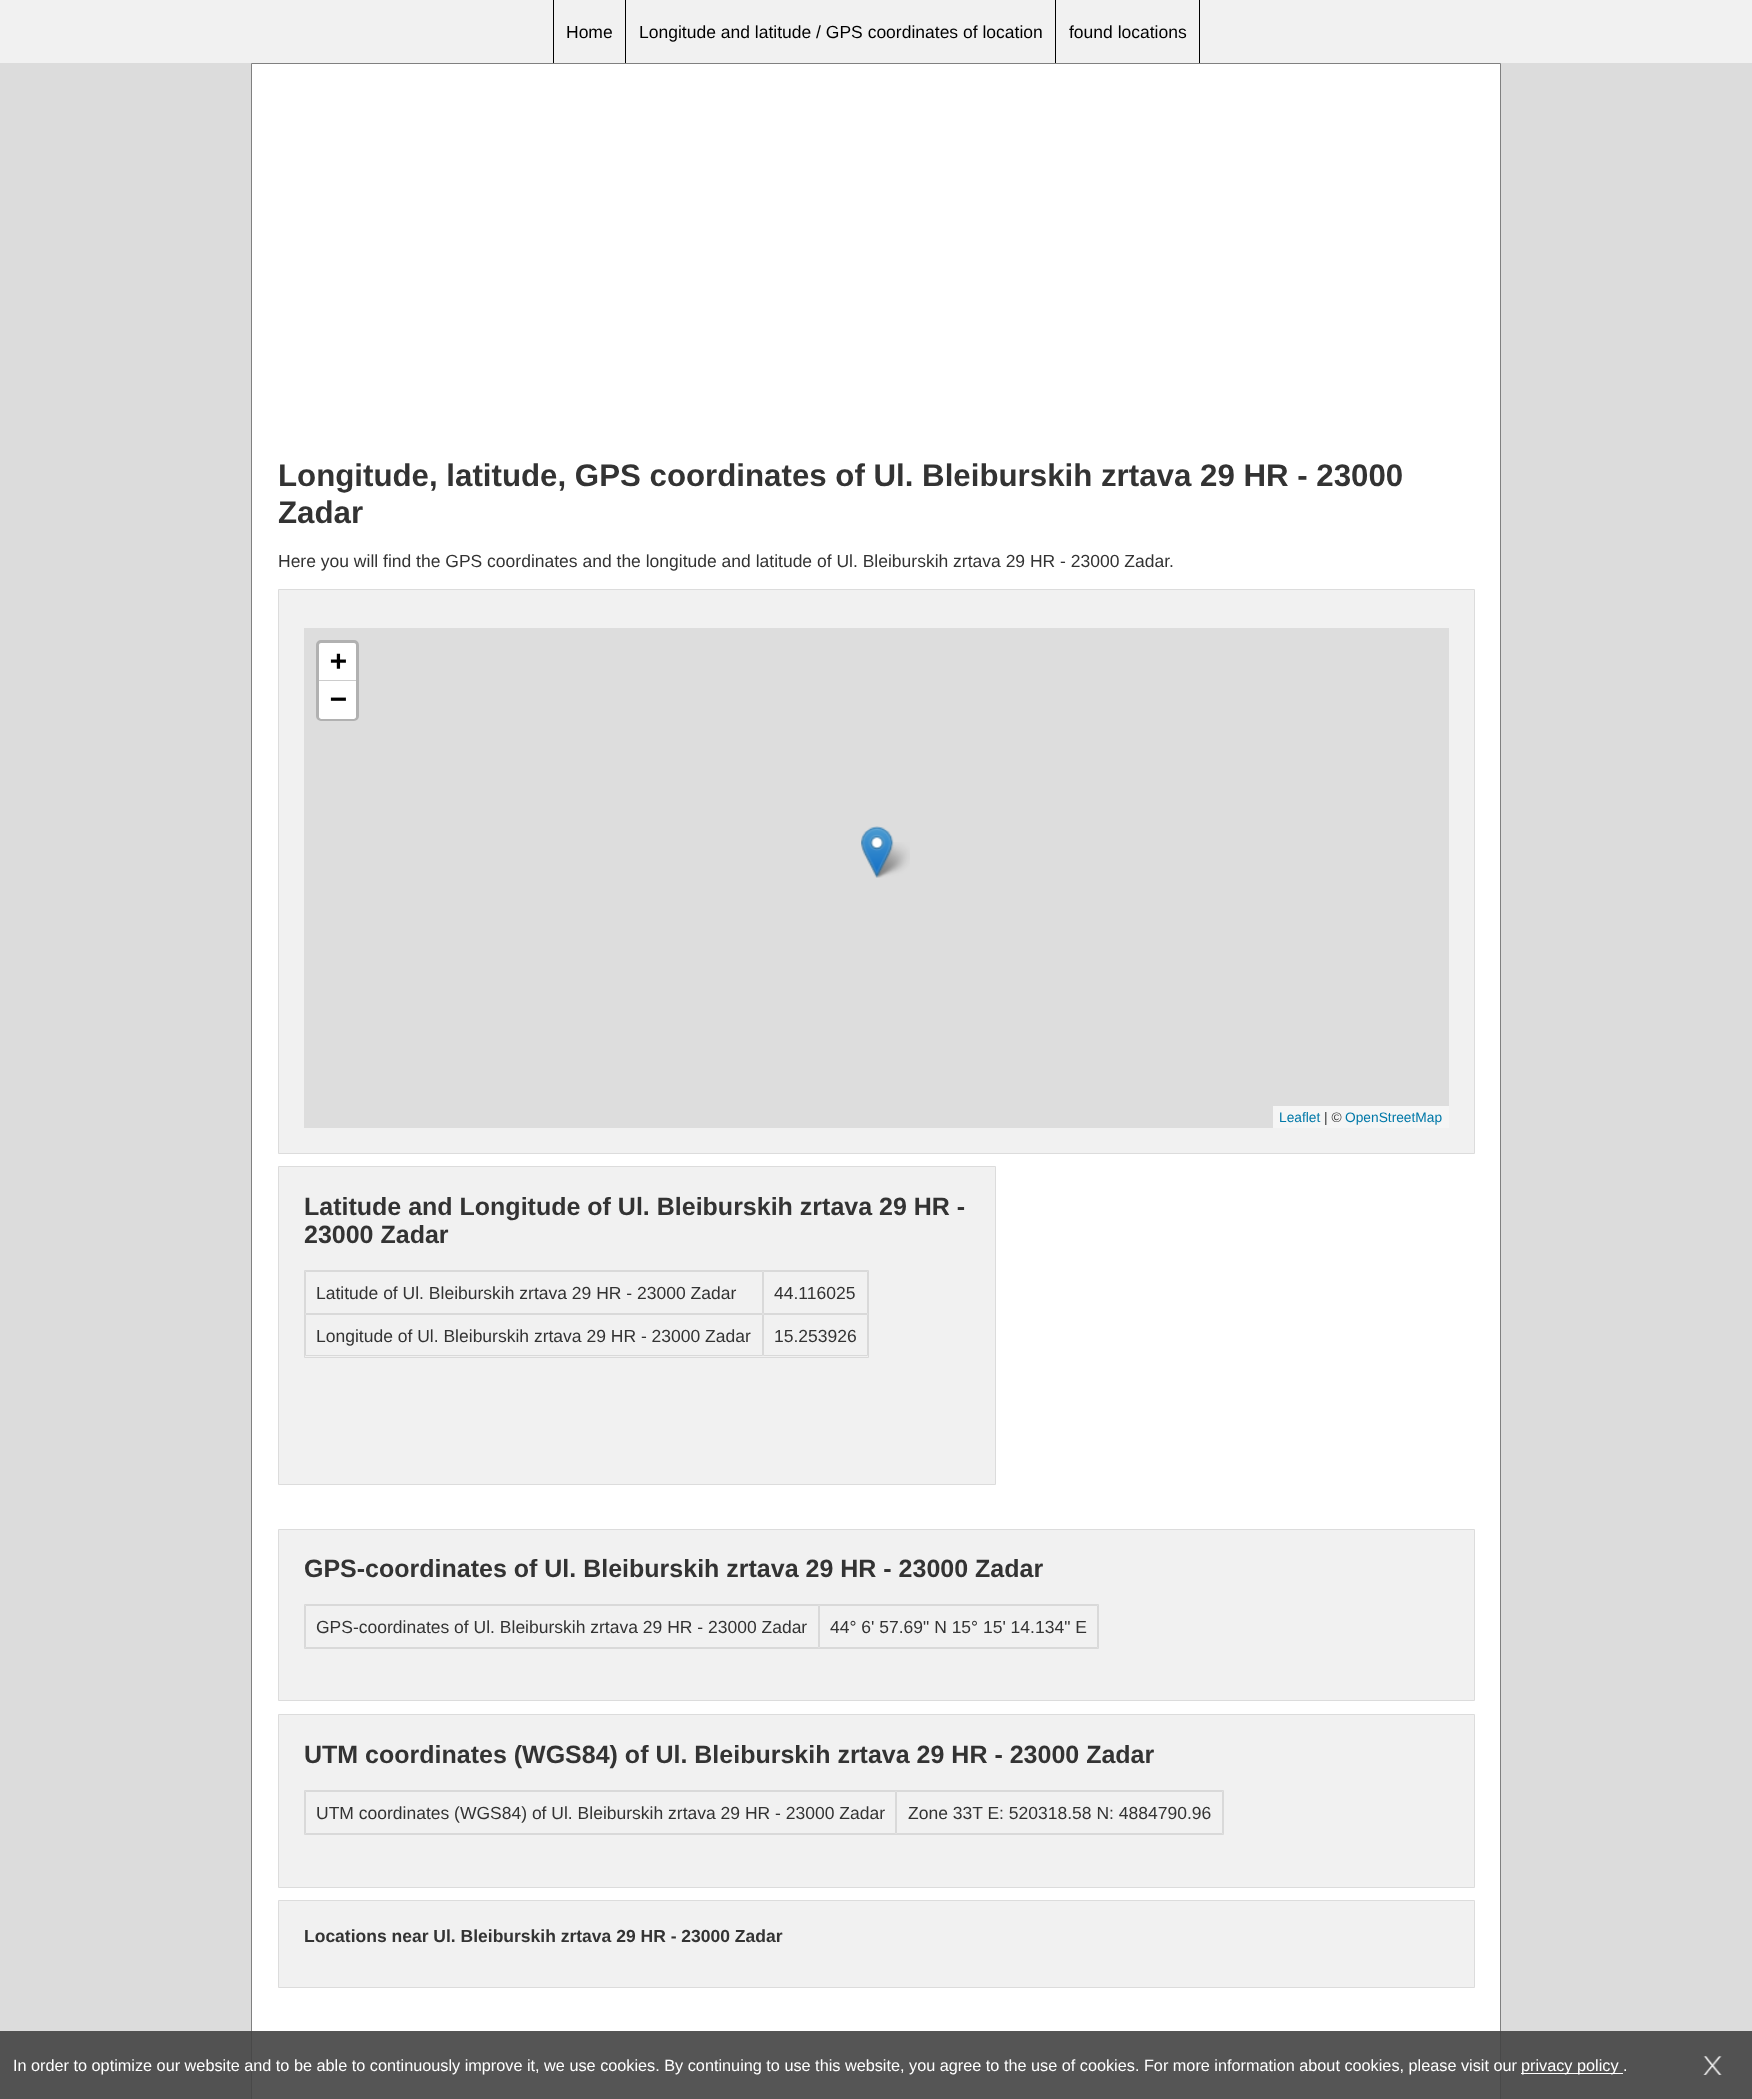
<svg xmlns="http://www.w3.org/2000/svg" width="1752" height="2099">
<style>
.a{font:17.5px Liberation Sans;fill:#000}
.b{font:bold 31.25px Liberation Sans;fill:#333}
.c{font:17.5px Liberation Sans;fill:#333}
.d{font:bold 28px DejaVu Sans Mono;fill:#000}
.e{font:13.75px Liberation Sans;fill:#0078a8}
.f{font:13.75px Liberation Sans;fill:#333}
.g{font:bold 25px Liberation Sans;fill:#333}
.h{font:bold 17.5px Liberation Sans;fill:#333}
.i{font:16.25px Liberation Sans;fill:#fff}
</style>
<rect width="100%" height="100%" fill="#dcdcdc"/>
<path fill="#f1f1f1" d="M0 0h1752v63H0z"/>
<path fill="#000" d="M553 0h1v63H553z"/>
<path fill="#000" d="M625 0h1v63H625z"/>
<path fill="#000" d="M1199 0h1v63H1199z"/>
<path fill="#000" d="M1055 0h1v63H1055z"/>
<path fill="#fff" stroke="#808080" d="M251.5 63.5h1249v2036H251.5z"/>
<path fill="#f1f1f1" stroke="#dcdcdc" d="M278.5 589.5h1196v564H278.5z"/>
<path fill="#ddd" d="M304 628h1145v500H304z"/>
<rect fill="none" stroke="#b1b1b1" stroke-width="3" x="317.5" y="641.5" width="40" height="78" rx="3.5"/>
<path fill="#fff" d="M321.5 643h32c1.5 0 2.5 1 2.5 2.5v35.5h-37v-35.5c0-1.5 1-2.5 2.5-2.5z"/>
<path fill="#ccc" d="M319 680h37v1H319z"/>
<path fill="#fff" d="M319 681h37v35.5c0 1.5-1 2.5-2.5 2.5h-32c-1.5 0-2.5-1-2.5-2.5z"/>
<path fill="#f5f5f5" d="M1273 1106h176v22H1273z"/>
<image href="2.png" x="872" y="842" width="38" height="36"/>
<image href="1.png" x="861" y="826" width="33" height="52"/>
<path fill="#f1f1f1" stroke="#dcdcdc" d="M278.5 1166.5h717v318H278.5z"/>
<path fill="none" stroke="#d9d9d9" d="M304.5 1270.5h564v87H304.5z"/>
<path fill="none" stroke="#d9d9d9" d="M305.5 1271.5h457v42H305.5z"/>
<path fill="none" stroke="#d9d9d9" d="M763.5 1271.5h104v42H763.5z"/>
<path fill="none" stroke="#d9d9d9" d="M305.5 1314.5h457v41H305.5z"/>
<path fill="none" stroke="#d9d9d9" d="M763.5 1314.5h104v41H763.5z"/>
<path fill="#f1f1f1" stroke="#dcdcdc" d="M278.5 1529.5h1196v171H278.5z"/>
<path fill="none" stroke="#d9d9d9" d="M304.5 1604.5h794v44H304.5z"/>
<path fill="none" stroke="#d9d9d9" d="M305.5 1605.5h513v42H305.5z"/>
<path fill="none" stroke="#d9d9d9" d="M819.5 1605.5h278v42H819.5z"/>
<path fill="#f1f1f1" stroke="#dcdcdc" d="M278.5 1714.5h1196v173H278.5z"/>
<path fill="none" stroke="#d9d9d9" d="M304.5 1790.5h919v44H304.5z"/>
<path fill="none" stroke="#d9d9d9" d="M305.5 1791.5h590v42H305.5z"/>
<path fill="none" stroke="#d9d9d9" d="M896.5 1791.5h326v42H896.5z"/>
<path fill="#f1f1f1" stroke="#dcdcdc" d="M278.5 1900.5h1196v87H278.5z"/>
<path fill="#434343e6" d="M0 2031h1752v68H0z"/>
<path fill="#fff" d="M1521 2073h102v1H1521z"/>
<image href="3.png" x="1703" y="2056" width="19" height="19"/>
<text class="a" x="566" y="38">Home</text>
<text class="a" x="639" y="38">Longitude and latitude / GPS coordinates of location</text>
<text class="a" x="1069" y="38">found locations</text>
<text class="b" x="278" y="486">Longitude, latitude, GPS coordinates of Ul. Bleiburskih zrtava 29 HR - 23000</text>
<text class="b" x="278" y="523">Zadar</text>
<text class="c" x="278" y="567">Here you will find the GPS coordinates and the longitude and latitude of Ul. Bleiburskih zrtava 29 HR - 23000 Zadar.</text>
<text class="d" x="330" y="670">+</text>
<text class="d" x="330" y="708">−</text>
<text class="e" x="1279" y="1122">Leaflet</text>
<text class="f" x="1324" y="1122">| ©</text>
<text class="e" x="1345" y="1122">OpenStreetMap</text>
<text class="g" x="304" y="1215">Latitude and Longitude of Ul. Bleiburskih zrtava 29 HR -</text>
<text class="g" x="304" y="1243">23000 Zadar</text>
<text class="c" x="316" y="1299">Latitude of Ul. Bleiburskih zrtava 29 HR - 23000 Zadar</text>
<text class="c" x="774" y="1299">44.116025</text>
<text class="c" x="316" y="1342">Longitude of Ul. Bleiburskih zrtava 29 HR - 23000 Zadar</text>
<text class="c" x="774" y="1342">15.253926</text>
<text class="g" x="304" y="1577">GPS-coordinates of Ul. Bleiburskih zrtava 29 HR - 23000 Zadar</text>
<text class="c" x="316" y="1633">GPS-coordinates of Ul. Bleiburskih zrtava 29 HR - 23000 Zadar</text>
<text class="c" x="830" y="1633">44° 6' 57.69" N 15° 15' 14.134" E</text>
<text class="g" x="304" y="1763">UTM coordinates (WGS84) of Ul. Bleiburskih zrtava 29 HR - 23000 Zadar</text>
<text class="c" x="316" y="1819">UTM coordinates (WGS84) of Ul. Bleiburskih zrtava 29 HR - 23000 Zadar</text>
<text class="c" x="908" y="1819">Zone 33T E: 520318.58 N: 4884790.96</text>
<text class="h" x="304" y="1942">Locations near Ul. Bleiburskih zrtava 29 HR - 23000 Zadar</text>
<text class="i" x="13" y="2071">In order to optimize our website and to be able to continuously improve it, we use cookies. By continuing to use this website, you agree to the use of cookies. For more information about cookies, please visit our</text>
<text class="i" x="1521" y="2071">privacy policy .</text>
</svg>
